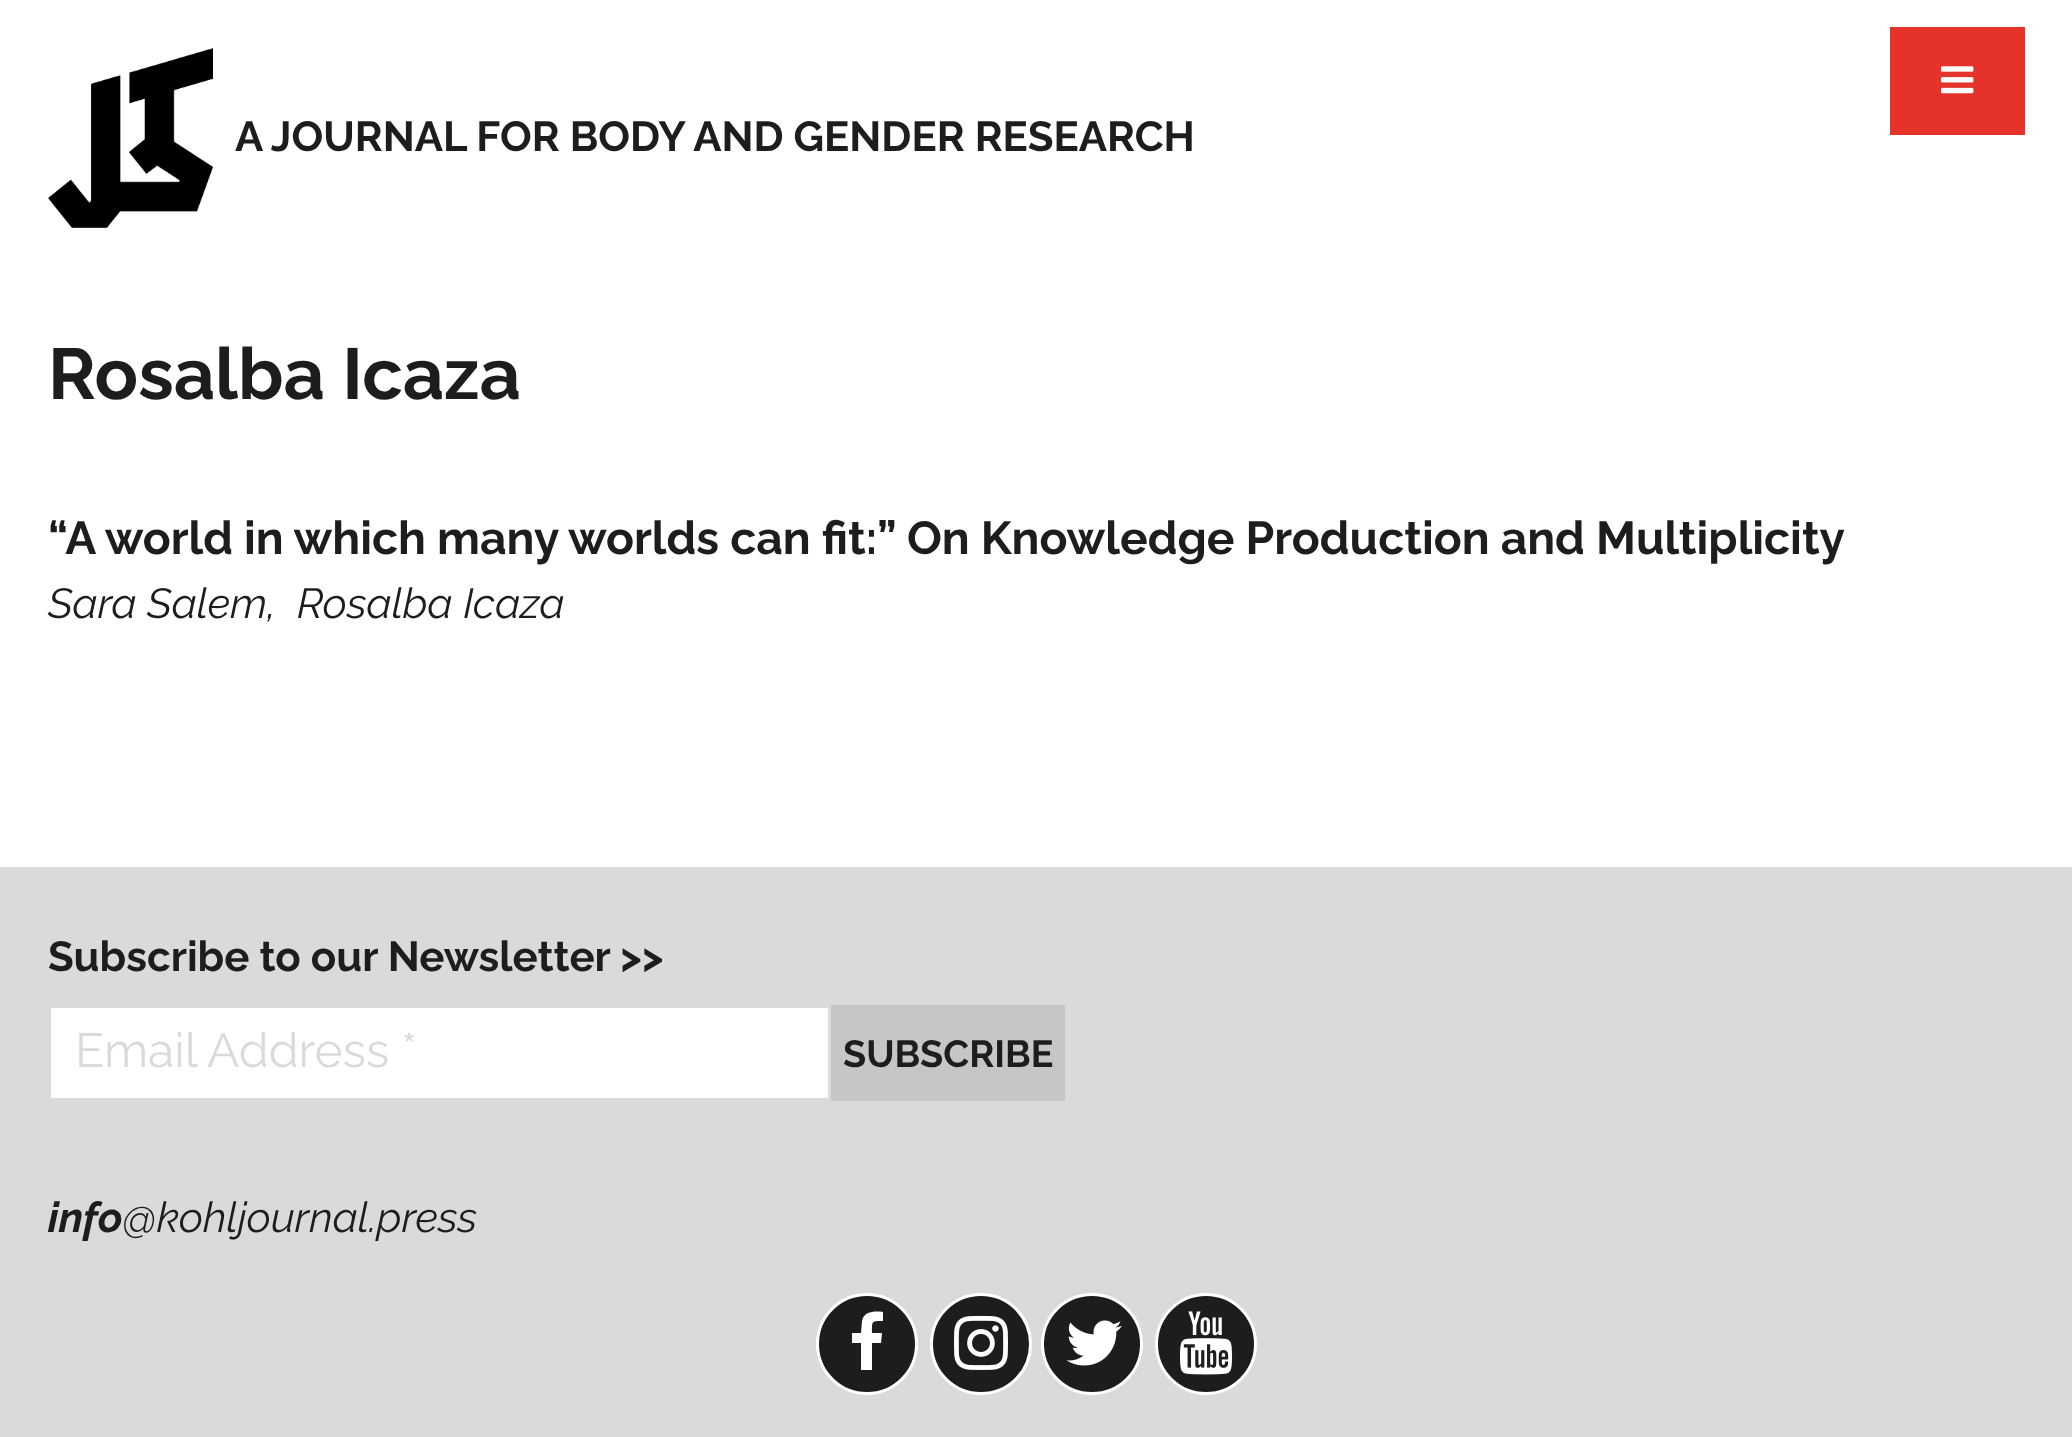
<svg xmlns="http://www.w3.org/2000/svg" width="2072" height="1437">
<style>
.a{font:bold 42px Raleway;fill:#1d1d1b}
.b{font:bold 72px Raleway;fill:#1d1d1b}
.c{font:bold 46.2px Raleway;fill:#1d1d1b}
.d{font:italic 42px Raleway;fill:#1d1d1b}
.e{font:48px Raleway;fill:#dadada}
.f{font:bold 37.75px Raleway;fill:#1d1d1b}
.g{font:italic bold 42px Raleway;fill:#1d1d1b}
</style>
<rect width="100%" height="100%" fill="#fff"/>
<image href="1.png" x="48" y="48" width="165" height="180"/>
<path fill="#e6332a" d="M1890 27h135v108H1890z"/>
<image href="2.png" x="1941" y="66" width="33" height="28"/>
<path fill="#dadada" d="M0 867h2072v570H0z"/>
<path fill="#fff" d="M51 1008h777v90H51z"/>
<path fill="#c6c6c6" d="M831 1005h234v96H831z"/>
<circle fill="#1d1d1b" stroke="#fff" stroke-width="3" cx="867" cy="1344" r="49.5"/>
<path fill="#fff" d="M883 1312v9c-12 0-11 0-11 12h10l-1 10h-9v27h-11v-27h-9v-10h9l1-12c2-10 13-10 21-9z"/>
<circle fill="#1d1d1b" stroke="#fff" stroke-width="3" cx="981" cy="1344" r="49.5"/>
<image href="3.png" x="954" y="1315" width="54" height="55"/>
<circle fill="#1d1d1b" stroke="#fff" stroke-width="3" cx="1092" cy="1344" r="49.5"/>
<image href="4.png" x="1066" y="1320" width="56" height="46"/>
<circle fill="#1d1d1b" stroke="#fff" stroke-width="3" cx="1206" cy="1344" r="49.5"/>
<image href="5.png" x="1179" y="1311" width="54" height="64"/>
<text class="a" x="235" y="151">A JOURNAL FOR BODY AND GENDER RESEARCH</text>
<text class="b" x="48" y="399">Rosalba Icaza</text>
<text class="c" x="48" y="554">“A world in which many worlds can fit:”</text>
<text class="c" x="907" y="554">On Knowledge Production and Multiplicity</text>
<text class="d" x="48" y="618">Sara Salem,</text>
<text class="d" x="297" y="618">Rosalba Icaza</text>
<text class="a" x="48" y="971">Subscribe to our Newsletter &gt;&gt;</text>
<text class="e" x="75" y="1067">Email Address *</text>
<text class="f" x="843" y="1067">SUBSCRIBE</text>
<text class="g" x="48" y="1232">info</text>
<text class="d" x="123" y="1232">@kohljournal.press</text>
</svg>
